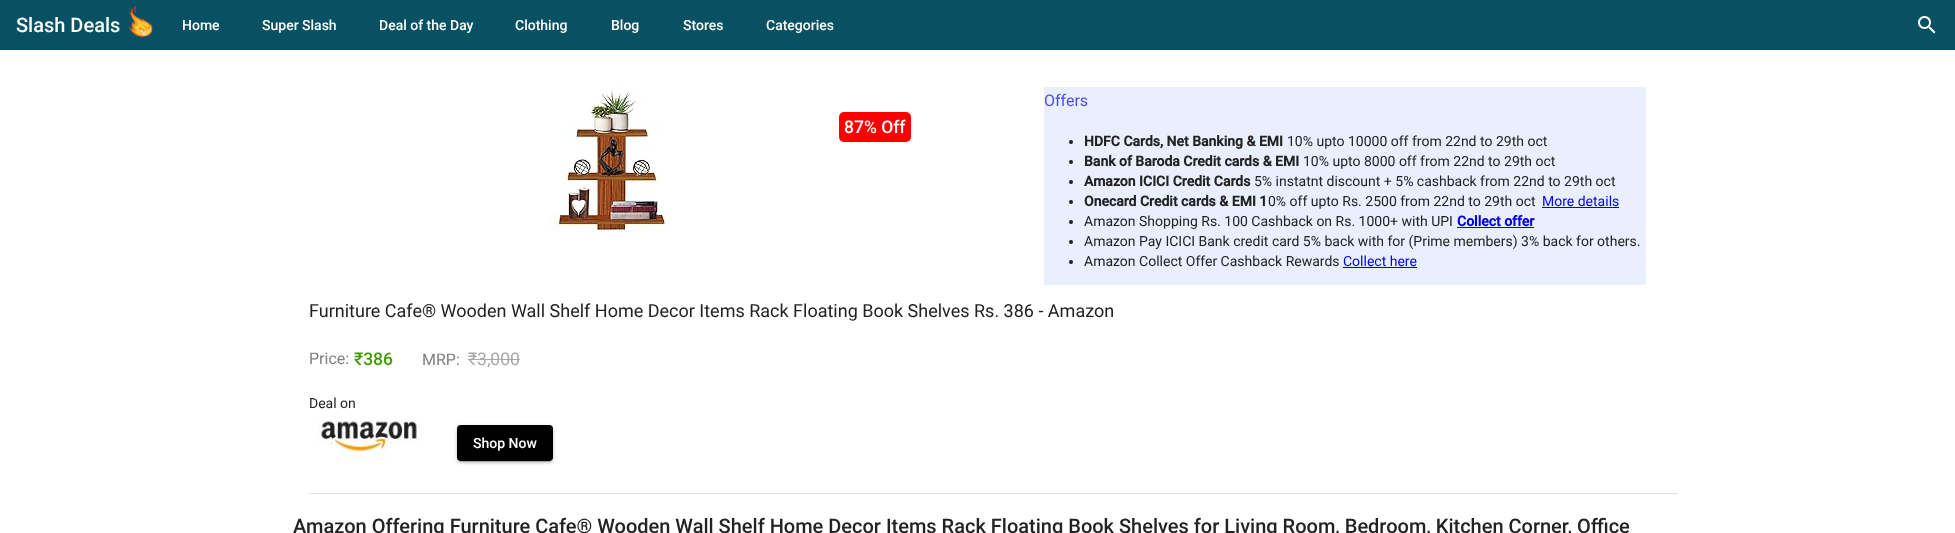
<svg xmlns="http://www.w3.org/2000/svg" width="1955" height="533">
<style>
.a{font:500 20px Roboto;fill:#fff}
.b{font:500 14px Roboto;fill:#fff}
.c{font:500 17.5px Roboto;fill:#fff}
.d{font:16px Roboto;fill:#4d4de6}
.e{font:bold 14px Roboto;fill:#222}
.f{font:14px Roboto;fill:#222}
.g{font:14px Roboto;fill:#00e}
.h{font:bold 14px Roboto;fill:#00e}
.i{font:18px Roboto;fill:#222}
.j{font:16px Roboto;fill:#808080}
.k{font:500 17.5px Roboto;fill:#429c00}
.l{font:17.5px Roboto;fill:#a9a9a9}
.m{font:500 20px Roboto;fill:#222}
</style>
<rect width="100%" height="100%" fill="#085163"/>
<image href="1.png" x="129" y="5" width="24" height="32"/>
<image href="2.png" x="1918" y="16" width="18" height="18"/>
<path fill="#fff" d="M0 50h1955v483H0z"/>
<image href="3.png" x="549" y="87" width="125" height="145"/>
<rect fill="#f00" x="839" y="112" width="72" height="30" rx="5"/>
<path fill="#e9effe" d="M1044 87h602v198H1044z"/>
<circle fill="#1e1f21" cx="1071" cy="142" r="2"/>
<circle fill="#1e1f21" cx="1071" cy="162" r="2"/>
<circle fill="#1e1f21" cx="1071" cy="182" r="2"/>
<circle fill="#1e1f21" cx="1071" cy="202" r="2"/>
<path fill="#00e" d="M1542 207h77v1H1542z"/>
<circle fill="#1e1f21" cx="1071" cy="222" r="2"/>
<path fill="#00e" d="M1457 227h77v1H1457z"/>
<circle fill="#1e1f21" cx="1071" cy="242" r="2"/>
<circle fill="#1e1f21" cx="1071" cy="262" r="2"/>
<path fill="#00e" d="M1343 267h74v1H1343z"/>
<path fill="#a9a9a9" d="M468 359h52v1H468z"/>
<image href="4.png" x="317" y="421" width="104" height="40"/>
<rect fill="#0000001f" filter="blur(2.5px)" x="457" y="426" width="96" height="36" rx="4"/>
<rect fill="#00000024" filter="blur(1px)" x="457" y="427" width="96" height="36" rx="4"/>
<rect fill="#00000033" filter="blur(0.5px)" x="459" y="430" width="92" height="32" rx="2"/>
<rect fill="#000" x="457" y="425" width="96" height="36" rx="4"/>
<path fill="#e0e0e0" d="M309 493h1369v1H309z"/>
<text class="a" x="16" y="32">Slash Deals</text>
<text class="b" x="182" y="30">Home</text>
<text class="b" x="262" y="30">Super Slash</text>
<text class="b" x="379" y="30">Deal of the Day</text>
<text class="b" x="515" y="30">Clothing</text>
<text class="b" x="611" y="30">Blog</text>
<text class="b" x="683" y="30">Stores</text>
<text class="b" x="766" y="30">Categories</text>
<text class="c" x="844" y="133">87% Off</text>
<text class="d" x="1044" y="106">Offers</text>
<text class="e" x="1084" y="146">HDFC Cards, Net Banking &amp; EMI</text>
<text class="f" x="1287" y="146">10% upto 10000 off from 22nd to 29th oct</text>
<text class="e" x="1084" y="166">Bank of Baroda Credit cards &amp; EMI</text>
<text class="f" x="1303" y="166">10% upto 8000 off from 22nd to 29th oct</text>
<text class="e" x="1084" y="186">Amazon ICICI Credit Cards</text>
<text class="f" x="1254" y="186">5% instatnt discount + 5% cashback from 22nd to 29th oct</text>
<text class="e" x="1084" y="206">Onecard Credit cards &amp; EMI 1</text>
<text class="f" x="1268" y="206">0% off upto Rs. 2500 from 22nd to 29th oct</text>
<text class="g" x="1542" y="206">More details</text>
<text class="f" x="1084" y="226">Amazon Shopping Rs. 100 Cashback on Rs. 1000+ with UPI</text>
<text class="h" x="1457" y="226">Collect offer</text>
<text class="f" x="1084" y="246">Amazon Pay ICICI Bank credit card 5% back with for (Prime members) 3% back for others.</text>
<text class="f" x="1084" y="266">Amazon Collect Offer Cashback Rewards</text>
<text class="g" x="1343" y="266">Collect here</text>
<text class="i" x="309" y="317">Furniture Cafe® Wooden Wall Shelf Home Decor Items Rack Floating Book Shelves Rs. 386 - Amazon</text>
<text class="j" x="309" y="364">Price:</text>
<text class="k" x="354" y="365">₹386</text>
<text class="j" x="422" y="365">MRP:</text>
<text class="l" x="468" y="365">₹3,000</text>
<text class="f" x="309" y="408">Deal on</text>
<text class="b" x="473" y="448">Shop Now</text>
<text class="m" x="293" y="533">Amazon Offering Furniture Cafe® Wooden Wall Shelf Home Decor Items Rack Floating Book Shelves for Living Room, Bedroom, Kitchen Corner, Office</text>
</svg>
